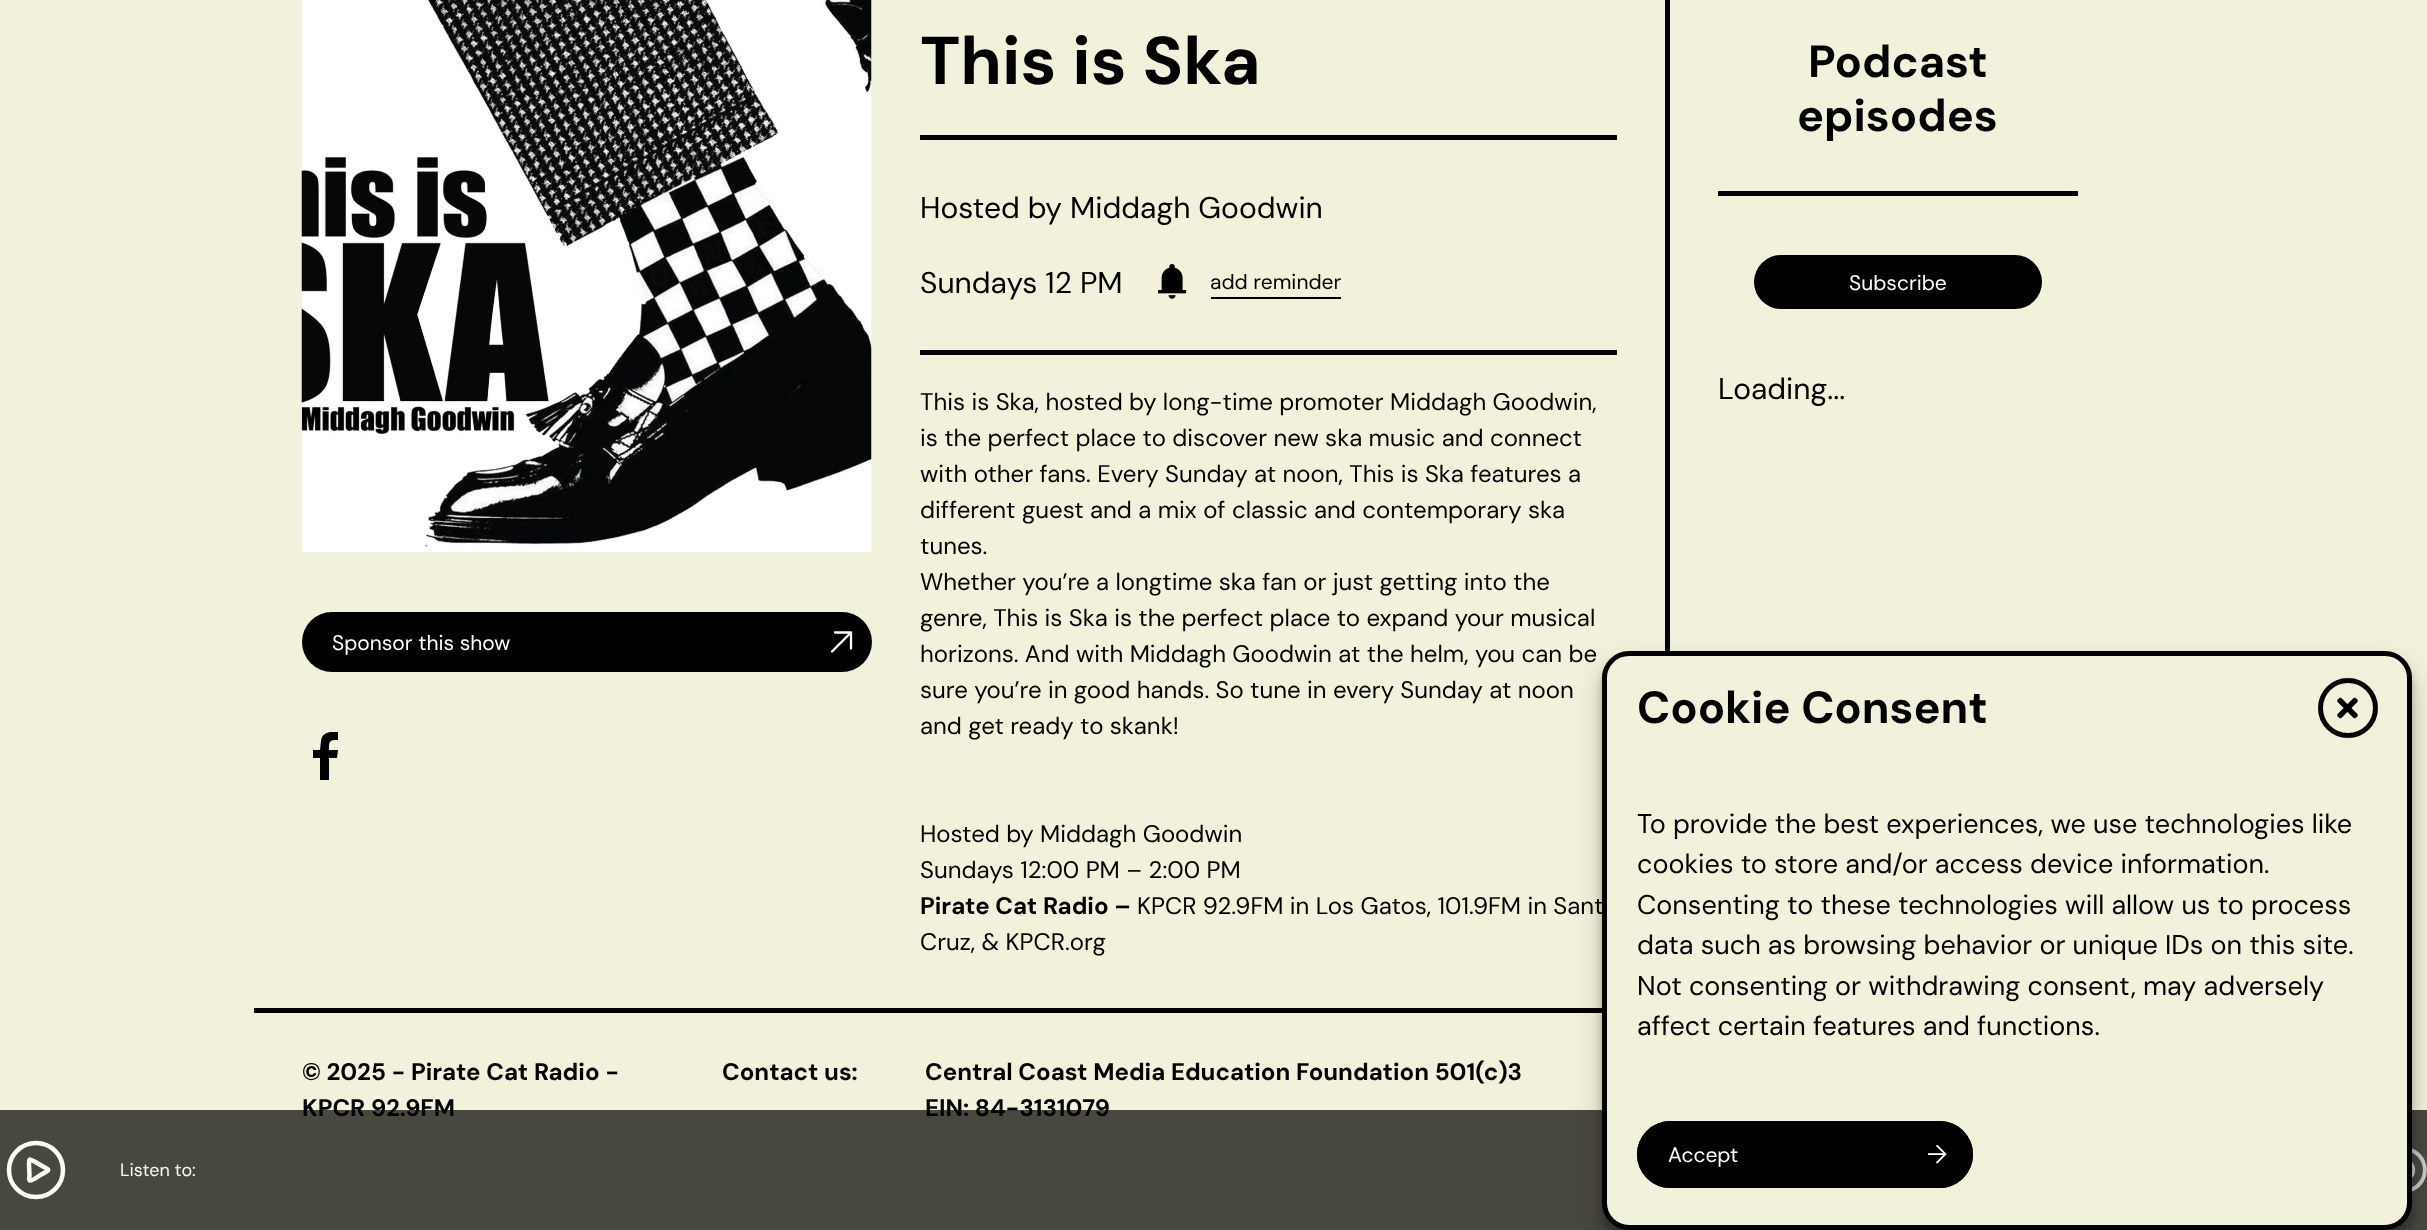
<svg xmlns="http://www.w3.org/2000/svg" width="2427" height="1230">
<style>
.a{font:21px DM Sans;fill:#fff}
.b{font:bold 67.5px DM Sans;fill:#000}
.c{font:30px DM Sans;fill:#000}
.d{font:21px DM Sans;fill:#000}
.e{font:24px DM Sans;fill:#000}
.f{font:bold 24px DM Sans;fill:#000}
.g{font:bold 45px DM Sans;fill:#000}
.h{font:18px DM Sans;fill:#fbfbf4}
.i{font:27px DM Sans;fill:#000}
</style>
<defs>
<clipPath id="clip1"><path d="M302 732h48v48H302z"/></clipPath>
</defs>
<rect width="100%" height="100%" fill="#f2f1db"/>
<image href="1.png" x="301" y="0" width="571" height="552"/>
<rect fill="#000" x="302" y="612" width="570" height="60" rx="30"/>
<path fill="none" stroke="#fff" stroke-width="2.3" stroke-linecap="round" stroke-linejoin="round" d="M835 632.5h16m0 0v16m0-16l-19 19"/>
<g clip-path="url(#clip1)">
<path fill="#000" d="M329 780v-22h8l1-8h-9c0-9 0-10 9-10v-8c-7-1-16 0-17 9l-1 9h-7v8h7v22z"/>
</g>
<path fill="#000" d="M1665 0h5v651H1665z"/>
<path fill="#000" d="M920 135h697v5H920z"/>
<path fill="#000" d="M920 350h697v5H920z"/>
<image href="2.png" x="1158" y="264" width="29" height="35"/>
<path fill="#000" d="M1211 297h130v2H1211z"/>
<path fill="#000" d="M1718 191h360v5H1718z"/>
<rect fill="#000" x="1754" y="255" width="288" height="54" rx="27"/>
<path fill="#000" d="M254 1008h1348v5H254z"/>
<text class="a" x="332" y="650">Sponsor this show</text>
<text class="b" x="920" y="84">This is Ska</text>
<text class="c" x="920" y="218">Hosted by Middagh Goodwin</text>
<text class="c" x="920" y="293">Sundays 12 PM</text>
<text class="d" x="1210" y="289">add reminder</text>
<text class="e" x="920" y="410">This is Ska, hosted by long-time promoter Middagh Goodwin,</text>
<text class="e" x="920" y="446">is the perfect place to discover new ska music and connect</text>
<text class="e" x="920" y="482">with other fans. Every Sunday at noon, This is Ska features a</text>
<text class="e" x="920" y="518">different guest and a mix of classic and contemporary ska</text>
<text class="e" x="920" y="554">tunes.</text>
<text class="e" x="920" y="590">Whether you’re a longtime ska fan or just getting into the</text>
<text class="e" x="920" y="626">genre, This is Ska is the perfect place to expand your musical</text>
<text class="e" x="920" y="662">horizons. And with Middagh Goodwin at the helm, you can be</text>
<text class="e" x="920" y="698">sure you’re in good hands. So tune in every Sunday at noon</text>
<text class="e" x="920" y="734">and get ready to skank!</text>
<text class="e" x="920" y="842">Hosted by Middagh Goodwin</text>
<text class="e" x="920" y="878">Sundays 12:00 PM – 2:00 PM</text>
<text class="f" x="920" y="914">Pirate Cat Radio –</text>
<text class="e" x="1137" y="914">KPCR 92.9FM in Los Gatos, 101.9FM in Sant</text>
<text class="e" x="920" y="950">Cruz, &amp; KPCR.org</text>
<text class="g" x="1808" y="77">Podcast</text>
<text class="g" x="1797" y="131">episodes</text>
<text class="a" x="1849" y="290">Subscribe</text>
<text class="c" x="1718" y="399">Loading...</text>
<text class="f" x="302" y="1080">© 2025 - Pirate Cat Radio -</text>
<text class="f" x="302" y="1116">KPCR 92.9FM</text>
<text class="f" x="722" y="1080">Contact us:</text>
<text class="f" x="925" y="1080">Central Coast Media Education Foundation 501(c)3</text>
<text class="f" x="925" y="1116">EIN: 84-3131079</text>
<path fill="#000000b3" d="M0 1110h2427v120H0z"/>
<path fill="none" stroke="#fbfbf4" stroke-width="4.5" stroke-linecap="round" stroke-linejoin="round" d="M63 1170c0 15-12 27-27 27c-15 0-27-12-27-27c0-15 12-27 27-27c15 0 27 12 27 27zm-15.5-1c2 1-.5 2.5-2.5 3.5l-5.5 3c-1.5 1-8 5.5-9.5 5c-1.5-.5-.5-4-.5-4.5l-.5-12c0-5.5 0-5.5 4.5-3z"/>
<text class="h" x="120" y="1176">Listen to:</text>
<image href="5.png" x="2412" y="1148" width="15" height="44"/>
<rect fill="#00000030" filter="blur(15px)" x="1602" y="666" width="810" height="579" rx="27"/>
<rect fill="#0000003b" filter="blur(4.5px)" x="1602" y="660" width="810" height="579" rx="27"/>
<rect fill="#f2f1db" stroke="#000" stroke-width="5" x="1604.5" y="653.5" width="805" height="574" rx="24.5"/>
<text class="i" x="1637" y="1035">affect certain features and functions.</text>
<text class="i" x="1637" y="995">Not consenting or withdrawing consent, may adversely</text>
<text class="i" x="1637" y="954">data such as browsing behavior or unique IDs on this site.</text>
<text class="i" x="1637" y="914">Consenting to these technologies will allow us to process</text>
<text class="i" x="1637" y="873">cookies to store and/or access device information.</text>
<text class="i" x="1637" y="833">To provide the best experiences, we use technologies like</text>
<circle fill="none" stroke="#000" stroke-width="5" cx="2348" cy="708" r="27.5"/>
<image href="3.png" x="2337" y="697" width="21" height="22"/>
<rect fill="#000" x="1637" y="1121" width="336" height="67" rx="33.5"/>
<image href="4.png" x="1928" y="1145" width="19" height="19"/>
<rect fill="none" stroke="#000" stroke-width="2" x="1638" y="1122" width="334" height="65" rx="32.5"/>
<text class="a" x="1668" y="1162">Accept</text>
<text class="g" x="1637" y="723">Cookie Consent</text>
</svg>
